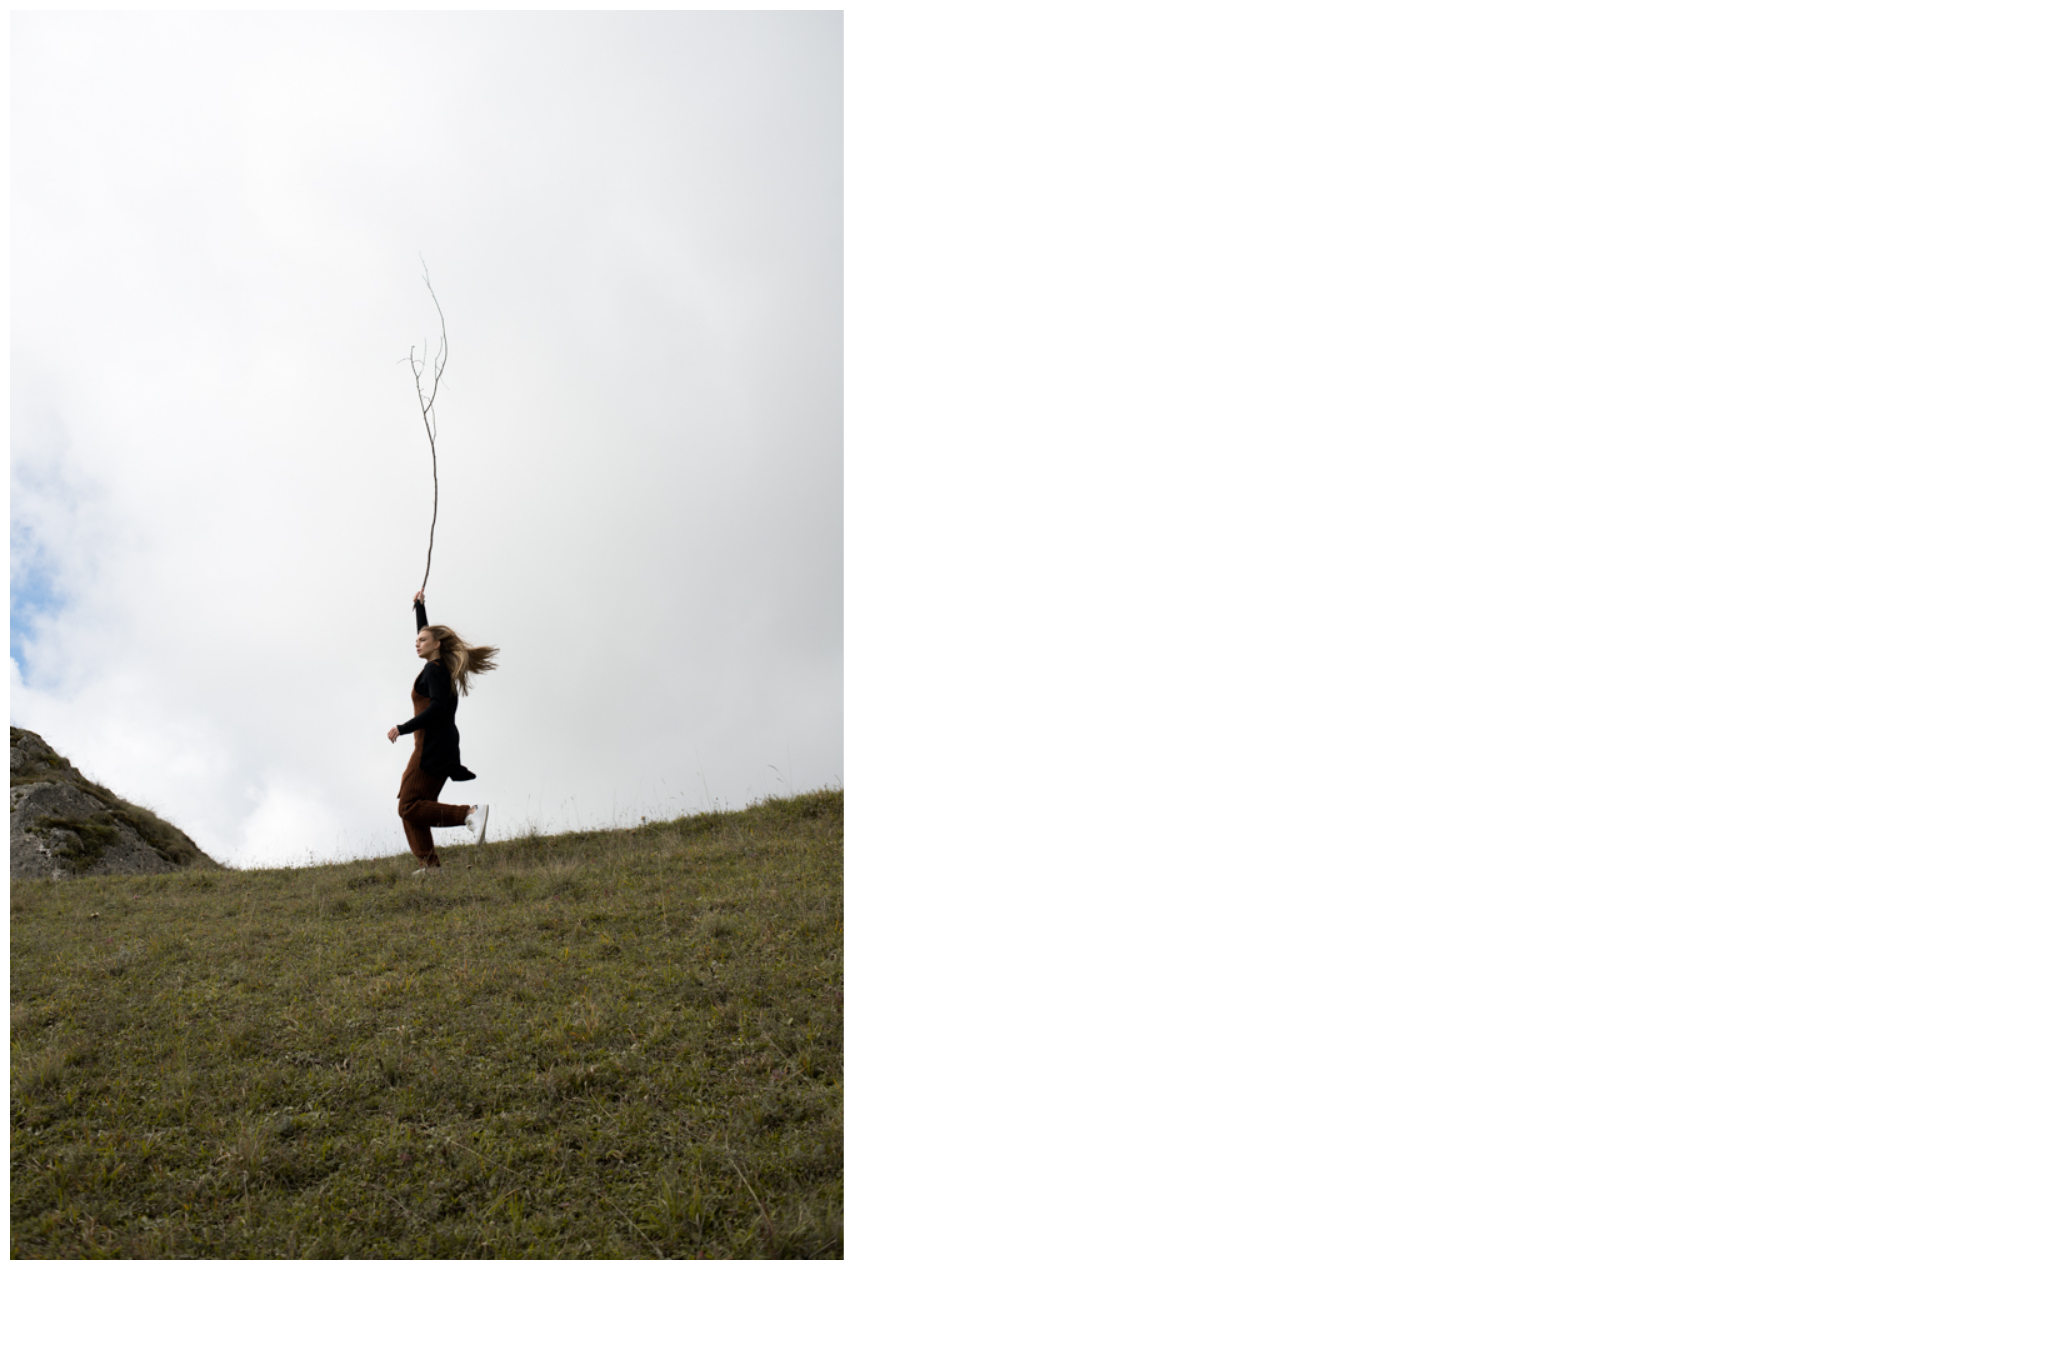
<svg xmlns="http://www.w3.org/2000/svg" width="2050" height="1350">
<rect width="100%" height="100%" fill="#fff"/>
<image href="1.png" x="10" y="10" width="834" height="1250"/>
</svg>
